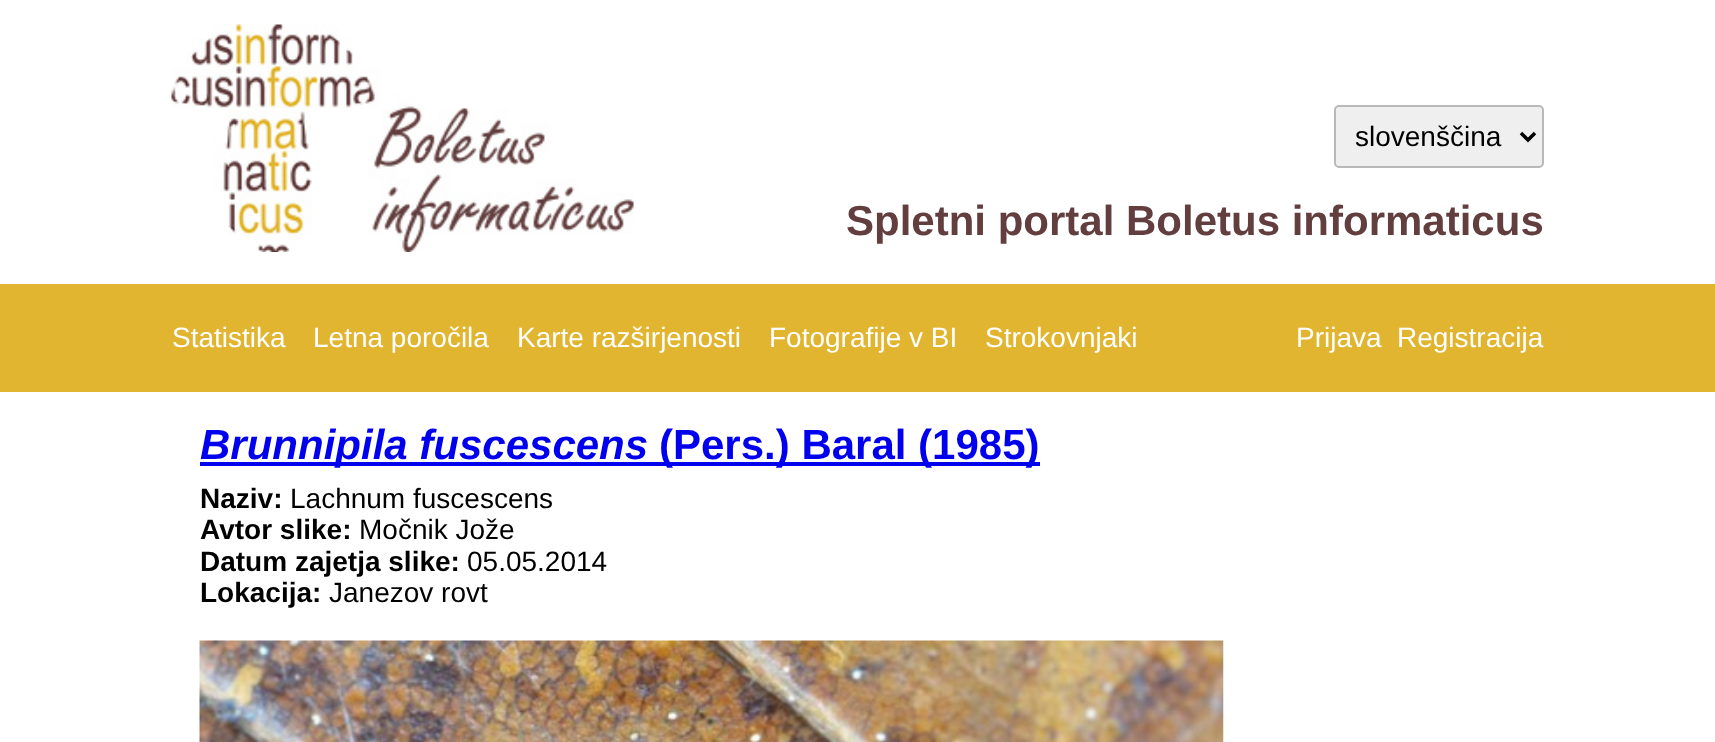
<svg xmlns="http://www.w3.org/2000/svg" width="1715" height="742">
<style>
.a{font:28px Liberation Sans;fill:#000}
.b{font:bold 42px Liberation Sans;fill:#623e3e}
.c{font:28px Liberation Sans;fill:#fff}
.d{font:italic bold 42px Liberation Sans;fill:#00e}
.e{font:bold 42px Liberation Sans;fill:#00e}
.f{font:bold 28px Liberation Sans;fill:#000}
</style>
<rect width="100%" height="100%" fill="#fff"/>
<image href="1.png" x="171" y="24" width="463" height="228"/>
<rect fill="#efefef" stroke="#b9b9b9" stroke-width="2" x="1335" y="106" width="208" height="61" rx="4"/>
<path fill="none" stroke="#000" stroke-width="3.5" d="M1521 133l7 7l7-7"/>
<path fill="#e1b52f" d="M0 284h1715v108H0z"/>
<path fill="#00e" d="M200 462h840v4H200z"/>
<image href="2.png" x="199" y="640" width="1025" height="102"/>
<text class="a" x="1355" y="146">slovenščina</text>
<text class="b" x="846" y="235">Spletni portal Boletus informaticus</text>
<text class="c" x="172" y="347">Statistika</text>
<text class="c" x="313" y="347">Letna poročila</text>
<text class="c" x="517" y="347">Karte razširjenosti</text>
<text class="c" x="769" y="347">Fotografije v BI</text>
<text class="c" x="985" y="347">Strokovnjaki</text>
<text class="c" x="1296" y="347">Prijava</text>
<text class="c" x="1397" y="347">Registracija</text>
<text class="d" x="200" y="459">Brunnipila fuscescens</text>
<text class="e" x="659" y="459">(Pers.) Baral (1985)</text>
<text class="f" x="200" y="508">Naziv:</text>
<text class="a" x="290" y="508">Lachnum fuscescens</text>
<text class="f" x="200" y="539">Avtor slike:</text>
<text class="a" x="359" y="539">Močnik Jože</text>
<text class="f" x="200" y="571">Datum zajetja slike:</text>
<text class="a" x="467" y="571">05.05.2014</text>
<text class="f" x="200" y="602">Lokacija:</text>
<text class="a" x="329" y="602">Janezov rovt</text>
</svg>
